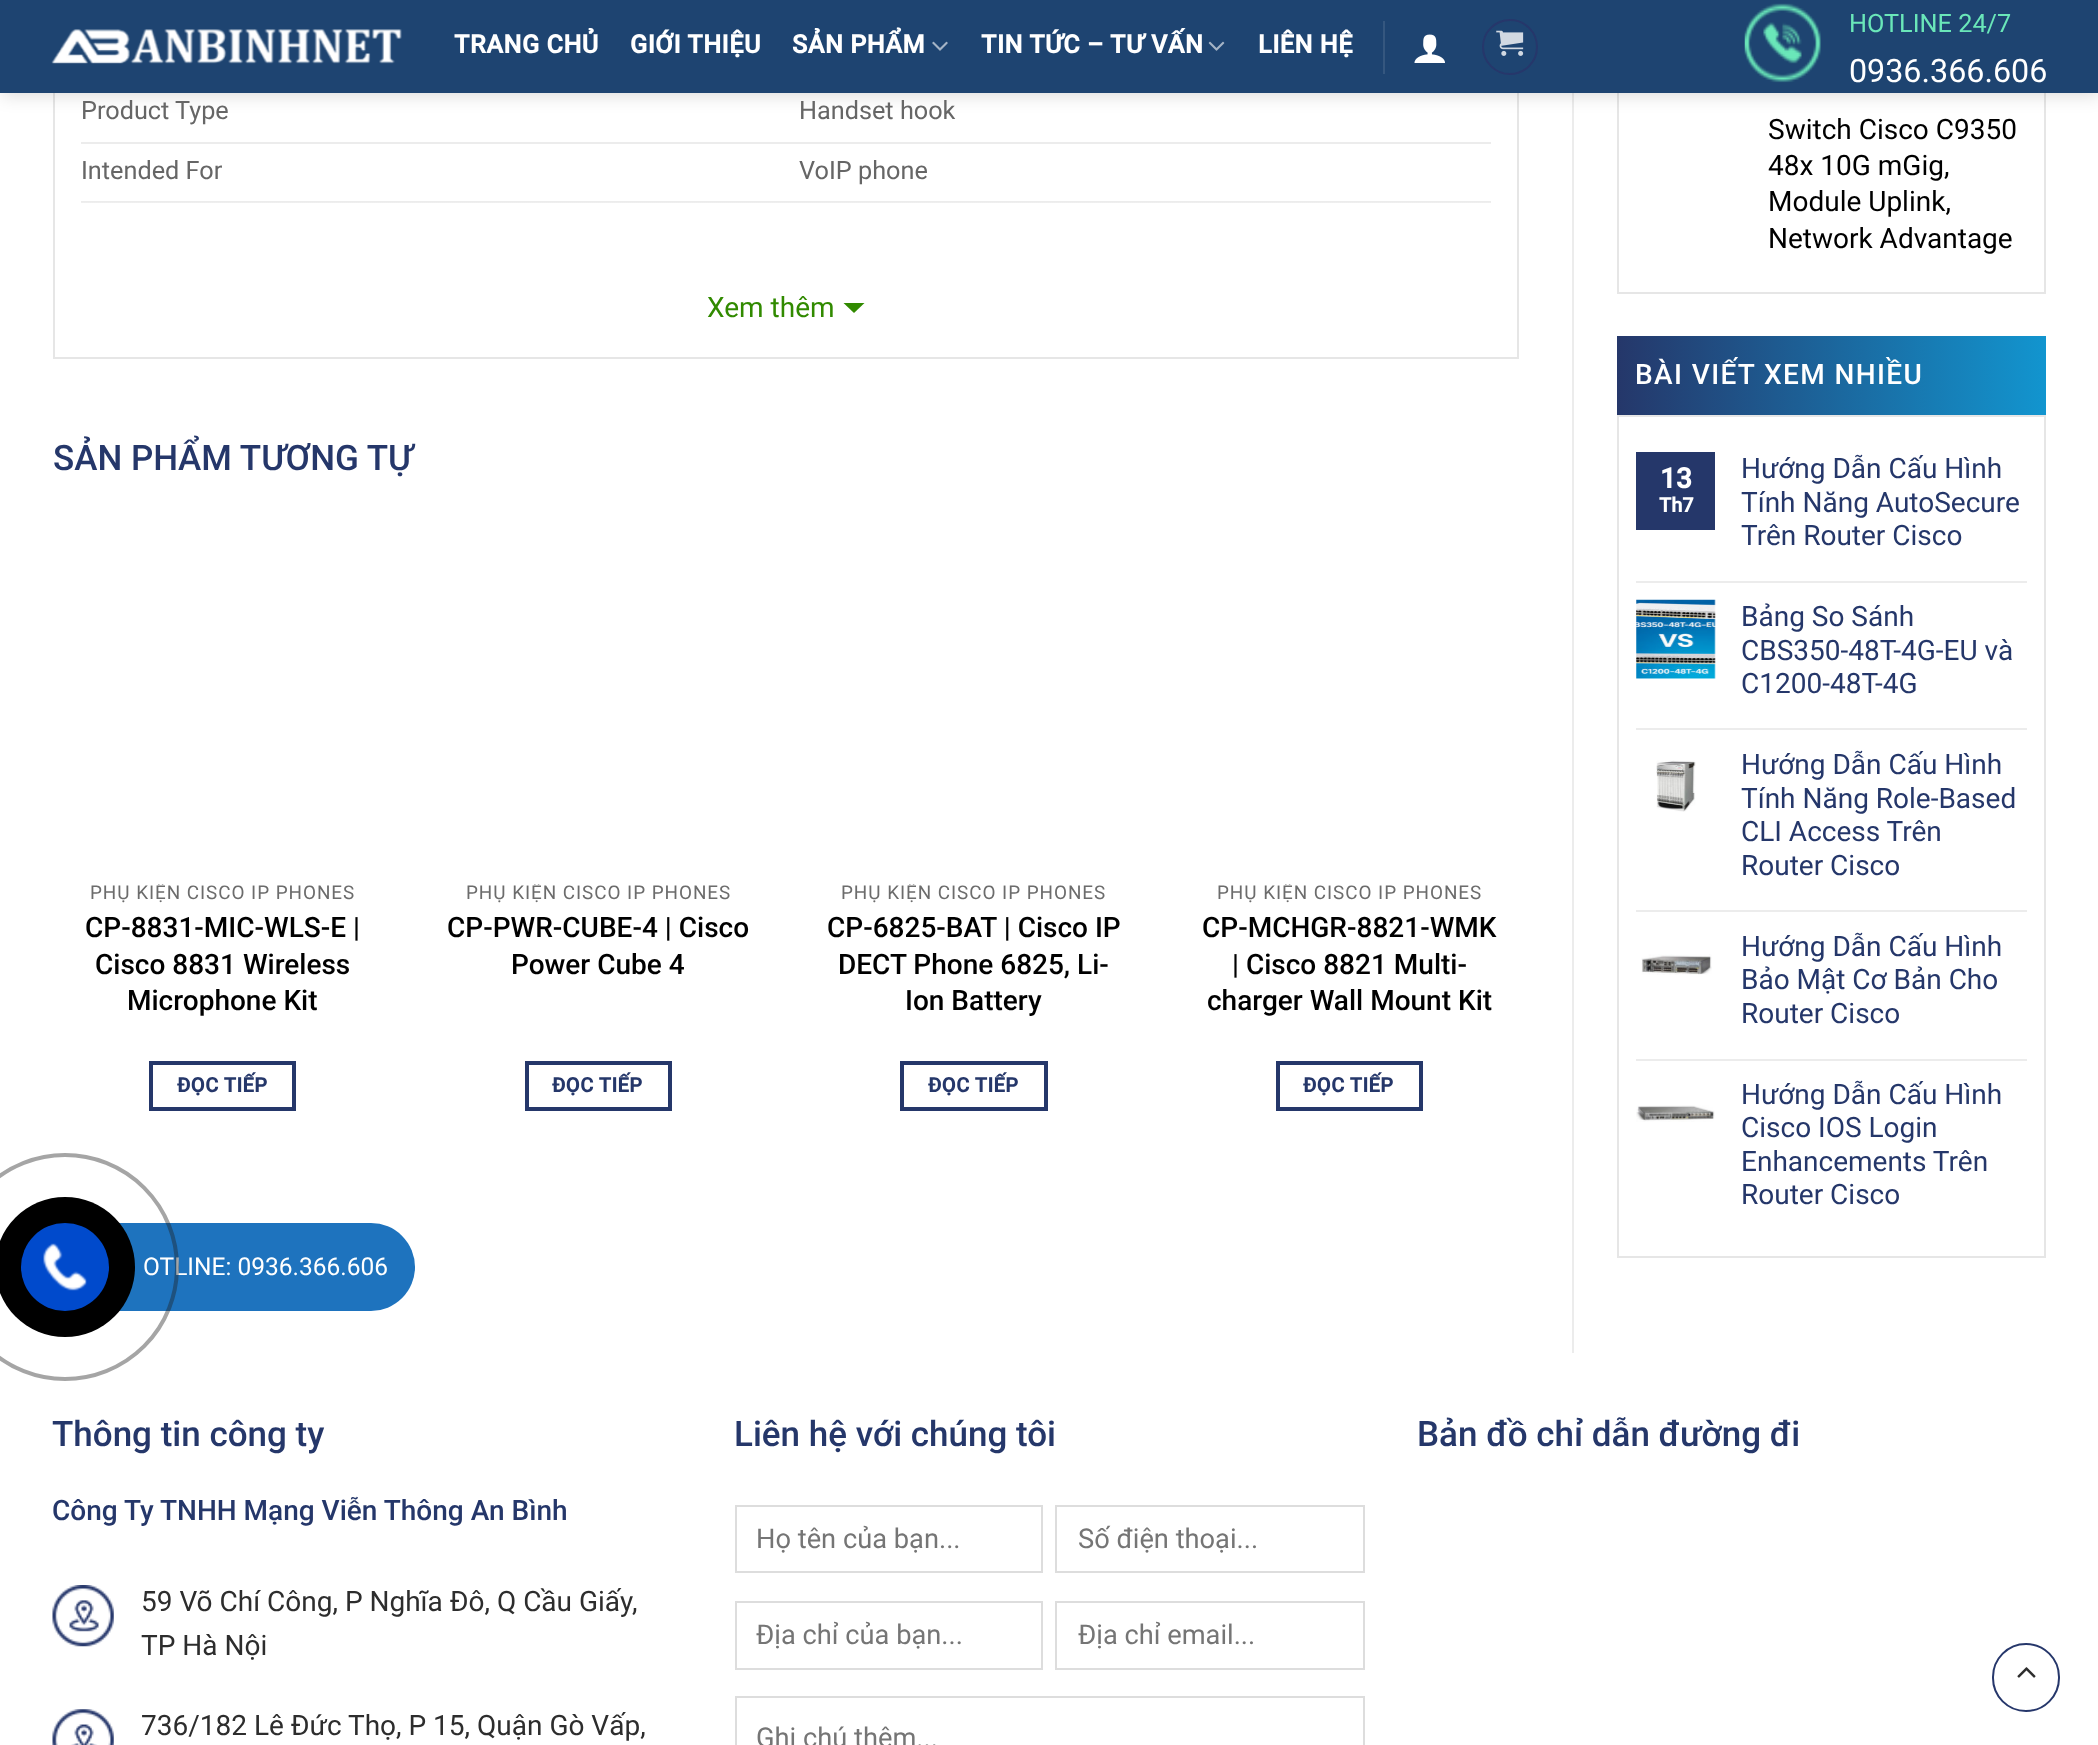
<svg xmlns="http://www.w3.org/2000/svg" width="2098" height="1745">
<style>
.a{font:bold 25.25px Roboto;letter-spacing:0.5px;fill:#fff}
.b{font:25.25px Roboto;fill:#6ae7b9}
.c{font:32.25px Roboto;fill:#fff}
.d{font:25.25px Roboto;fill:#666}
.e{font:28px Roboto;fill:#318a00}
.f{font:500 35px Roboto;fill:#25376a}
.g{font:18.9px Roboto;letter-spacing:0.95px;fill:#6c6c6c}
.h{font:500 28px Roboto;fill:#000}
.i{font:bold 20px Roboto;letter-spacing:0.5px;fill:#25376a}
.j{font:28px Roboto;fill:#000}
.k{font:500 28px Roboto;letter-spacing:1.4px;fill:#fff}
.l{font:bold 28px Roboto;fill:#fff}
.m{font:bold 20px Roboto;fill:#fff}
.n{font:28px Roboto;fill:#25376a}
.o{font:500 28px Roboto;fill:#25376a}
.p{font:28px Roboto;fill:#2d2d2d}
.q{font:27.25px Roboto;fill:#757575}
.r{font:24.5px Roboto;fill:#fff}
</style>
<defs>
<linearGradient id="g1" gradientUnits="userSpaceOnUse" x1="786" y1="189" x2="786" y2="285"><stop offset="0" stop-color="#fff" stop-opacity="0"/><stop offset="1" stop-color="#fff"/></linearGradient>
<linearGradient id="g2" gradientUnits="userSpaceOnUse" x1="2046" y1="375" x2="1617" y2="375"><stop offset="0" stop-color="#1295cf"/><stop offset="1" stop-color="#25376a"/></linearGradient>
<clipPath id="clip1"><path d="M70 884h306v23H70z"/></clipPath>
<clipPath id="clip2"><path d="M445 884h306v23H445z"/></clipPath>
<clipPath id="clip3"><path d="M821 884h306v23H821z"/></clipPath>
<clipPath id="clip4"><path d="M1195 884h307v23H1195z"/></clipPath>
</defs>
<rect width="100%" height="100%" fill="#fff"/>
<path fill="#ececec" d="M1572 93h2v1260H1572z"/>
<path fill="none" stroke="#e6e6e6" stroke-width="2" d="M54 -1h1464v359H54z"/>
<path fill="none" stroke="#e6e6e6" stroke-width="2" d="M1618 -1h427v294H1618z"/>
<path fill="#00000026" filter="blur(9px)" d="M2 2h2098v93H2z"/>
<path fill="#1e4471" d="M0 0h2098v93H0z"/>
<image href="1.png" x="51" y="29" width="351" height="35"/>
<image href="2.png" x="932" y="41" width="16" height="10"/>
<image href="3.png" x="1208" y="41" width="17" height="10"/>
<path fill="#35577f" d="M1383 21h2v53H1383z"/>
<image href="4.png" x="1414" y="34" width="31" height="29"/>
<circle fill="none" stroke="#26376b" stroke-width="2" cx="1510" cy="47" r="27"/>
<image href="5.png" x="1496" y="30" width="28" height="26"/>
<image href="6.png" x="1744" y="3" width="77" height="80"/>
<path fill="#ececec" d="M81 142h1410v2H81z"/>
<path fill="#ececec" d="M81 201h1410v2H81z"/>
<path fill="url(#g1)" d="M81 202h1410v1H81z"/>
<path fill="#318a00" d="M843.5 303h21l-10.5 10z"/>
<path fill="none" stroke="#25376a" stroke-width="4" d="M151 1063h143v46H151z"/>
<path fill="none" stroke="#25376a" stroke-width="4" d="M527 1063h143v46H527z"/>
<path fill="none" stroke="#25376a" stroke-width="4" d="M902 1063h144v46H902z"/>
<path fill="none" stroke="#25376a" stroke-width="4" d="M1278 1063h143v46H1278z"/>
<path fill="url(#g2)" d="M1617 336h429v79H1617z"/>
<path fill="none" stroke="#e6e6e6" stroke-width="2" d="M1618 416h427v841H1618z"/>
<path fill="#25376a" d="M1636 452h79v78H1636z"/>
<path fill="#ececec" d="M1636 581h391v2H1636z"/>
<image href="7.png" x="1636" y="599" width="80" height="80"/>
<path fill="#ececec" d="M1636 728h391v2H1636z"/>
<image href="8.png" x="1656" y="760" width="40" height="52"/>
<path fill="#ececec" d="M1636 910h391v2H1636z"/>
<image href="9.png" x="1641" y="954" width="71" height="21"/>
<path fill="#ececec" d="M1636 1059h391v2H1636z"/>
<image href="10.png" x="1636" y="1105" width="79" height="17"/>
<image href="11.png" x="52" y="1585" width="62" height="62"/>
<image href="12.png" x="52" y="1709" width="62" height="36"/>
<path fill="none" stroke="#ddd" stroke-width="2" d="M736 1506h306v66H736z"/>
<path fill="none" stroke="#ddd" stroke-width="2" d="M736 1602h306v67H736z"/>
<path fill="none" stroke="#ddd" stroke-width="2" d="M1056 1506h308v66H1056z"/>
<path fill="none" stroke="#ddd" stroke-width="2" d="M1056 1602h308v67H1056z"/>
<path fill="none" stroke="#ddd" stroke-width="2" d="M736 1697h628v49H736z"/>
<rect fill="none" stroke="#26376b" stroke-width="2" x="1993" y="1644" width="66" height="67" rx="33"/>
<image href="13.png" x="2017" y="1667" width="19" height="11"/>
<rect fill="#1e73be" x="21" y="1223" width="394" height="88" rx="44"/>
<text class="a" x="454" y="53">TRANG CHỦ</text>
<text class="a" x="630" y="53">GIỚI THIỆU</text>
<text class="a" x="792" y="53">SẢN PHẨM</text>
<text class="a" x="981" y="53">TIN TỨC – TƯ VẤN</text>
<text class="a" x="1258" y="53">LIÊN HỆ</text>
<text class="b" x="1849" y="32">HOTLINE 24/7</text>
<text class="c" x="1849" y="82">0936.366.606</text>
<text class="d" x="81" y="119">Product Type</text>
<text class="d" x="799" y="119">Handset hook</text>
<text class="d" x="81" y="179">Intended For</text>
<text class="d" x="799" y="179">VoIP phone</text>
<text class="e" x="707" y="317">Xem thêm</text>
<text class="f" x="53" y="470">SẢN PHẨM TƯƠNG TỰ</text>
<g clip-path="url(#clip1)">
<text class="g" x="90" y="899">PHỤ KIỆN CISCO IP PHONES</text>
</g>
<text class="h" x="85" y="937">CP-8831-MIC-WLS-E |</text>
<text class="h" x="95" y="974">Cisco 8831 Wireless</text>
<text class="h" x="127" y="1010">Microphone Kit</text>
<text class="i" x="177" y="1092">ĐỌC TIẾP</text>
<g clip-path="url(#clip2)">
<text class="g" x="466" y="899">PHỤ KIỆN CISCO IP PHONES</text>
</g>
<text class="h" x="447" y="937">CP-PWR-CUBE-4 | Cisco</text>
<text class="h" x="511" y="974">Power Cube 4</text>
<text class="i" x="552" y="1092">ĐỌC TIẾP</text>
<g clip-path="url(#clip3)">
<text class="g" x="841" y="899">PHỤ KIỆN CISCO IP PHONES</text>
</g>
<text class="h" x="827" y="937">CP-6825-BAT | Cisco IP</text>
<text class="h" x="838" y="974">DECT Phone 6825, Li-</text>
<text class="h" x="905" y="1010">Ion Battery</text>
<text class="i" x="928" y="1092">ĐỌC TIẾP</text>
<g clip-path="url(#clip4)">
<text class="g" x="1217" y="899">PHỤ KIỆN CISCO IP PHONES</text>
</g>
<text class="h" x="1202" y="937">CP-MCHGR-8821-WMK</text>
<text class="h" x="1232" y="974">| Cisco 8821 Multi-</text>
<text class="h" x="1207" y="1010">charger Wall Mount Kit</text>
<text class="i" x="1303" y="1092">ĐỌC TIẾP</text>
<text class="j" x="1768" y="139">Switch Cisco C9350</text>
<text class="j" x="1768" y="175">48x 10G mGig,</text>
<text class="j" x="1768" y="211">Module Uplink,</text>
<text class="j" x="1768" y="248">Network Advantage</text>
<text class="k" x="1635" y="384">BÀI VIẾT XEM NHIỀU</text>
<text class="l" x="1660" y="488">13</text>
<text class="m" x="1659" y="512">Th7</text>
<text class="n" x="1741" y="478">Hướng Dẫn Cấu Hình</text>
<text class="n" x="1741" y="512">Tính Năng AutoSecure</text>
<text class="n" x="1741" y="545">Trên Router Cisco</text>
<text class="n" x="1741" y="626">Bảng So Sánh</text>
<text class="n" x="1741" y="660">CBS350-48T-4G-EU và</text>
<text class="n" x="1741" y="693">C1200-48T-4G</text>
<text class="n" x="1741" y="774">Hướng Dẫn Cấu Hình</text>
<text class="n" x="1741" y="808">Tính Năng Role-Based</text>
<text class="n" x="1741" y="841">CLI Access Trên</text>
<text class="n" x="1741" y="875">Router Cisco</text>
<text class="n" x="1741" y="956">Hướng Dẫn Cấu Hình</text>
<text class="n" x="1741" y="989">Bảo Mật Cơ Bản Cho</text>
<text class="n" x="1741" y="1023">Router Cisco</text>
<text class="n" x="1741" y="1104">Hướng Dẫn Cấu Hình</text>
<text class="n" x="1741" y="1137">Cisco IOS Login</text>
<text class="n" x="1741" y="1171">Enhancements Trên</text>
<text class="n" x="1741" y="1204">Router Cisco</text>
<text class="f" x="52" y="1446">Thông tin công ty</text>
<text class="o" x="52" y="1520">Công Ty TNHH Mạng Viễn Thông An Bình</text>
<text class="p" x="141" y="1611">59 Võ Chí Công, P Nghĩa Đô, Q Cầu Giấy,</text>
<text class="p" x="141" y="1655">TP Hà Nội</text>
<text class="p" x="141" y="1735">736/182 Lê Đức Thọ, P 15, Quận Gò Vấp,</text>
<text class="f" x="734" y="1446">Liên hệ với chúng tôi</text>
<text class="q" x="756" y="1548">Họ tên của bạn...</text>
<text class="q" x="756" y="1644">Địa chỉ của bạn...</text>
<text class="q" x="1078" y="1548">Số điện thoại...</text>
<text class="q" x="1078" y="1644">Địa chỉ email...</text>
<text class="q" x="756" y="1747">Ghi chú thêm...</text>
<text class="f" x="1417" y="1446">Bản đồ chỉ dẫn đường đi</text>
<text class="r" x="143" y="1275">OTLINE: 0936.366.606</text>
<circle fill="none" stroke="#1e1e1e66" stroke-width="4" cx="65" cy="1267" r="112"/>
<circle fill="#000" cx="65" cy="1267" r="70"/>
<circle fill="#004acc" cx="65" cy="1267" r="44"/>
<image href="14.png" x="43" y="1243" width="44" height="48"/>
</svg>
